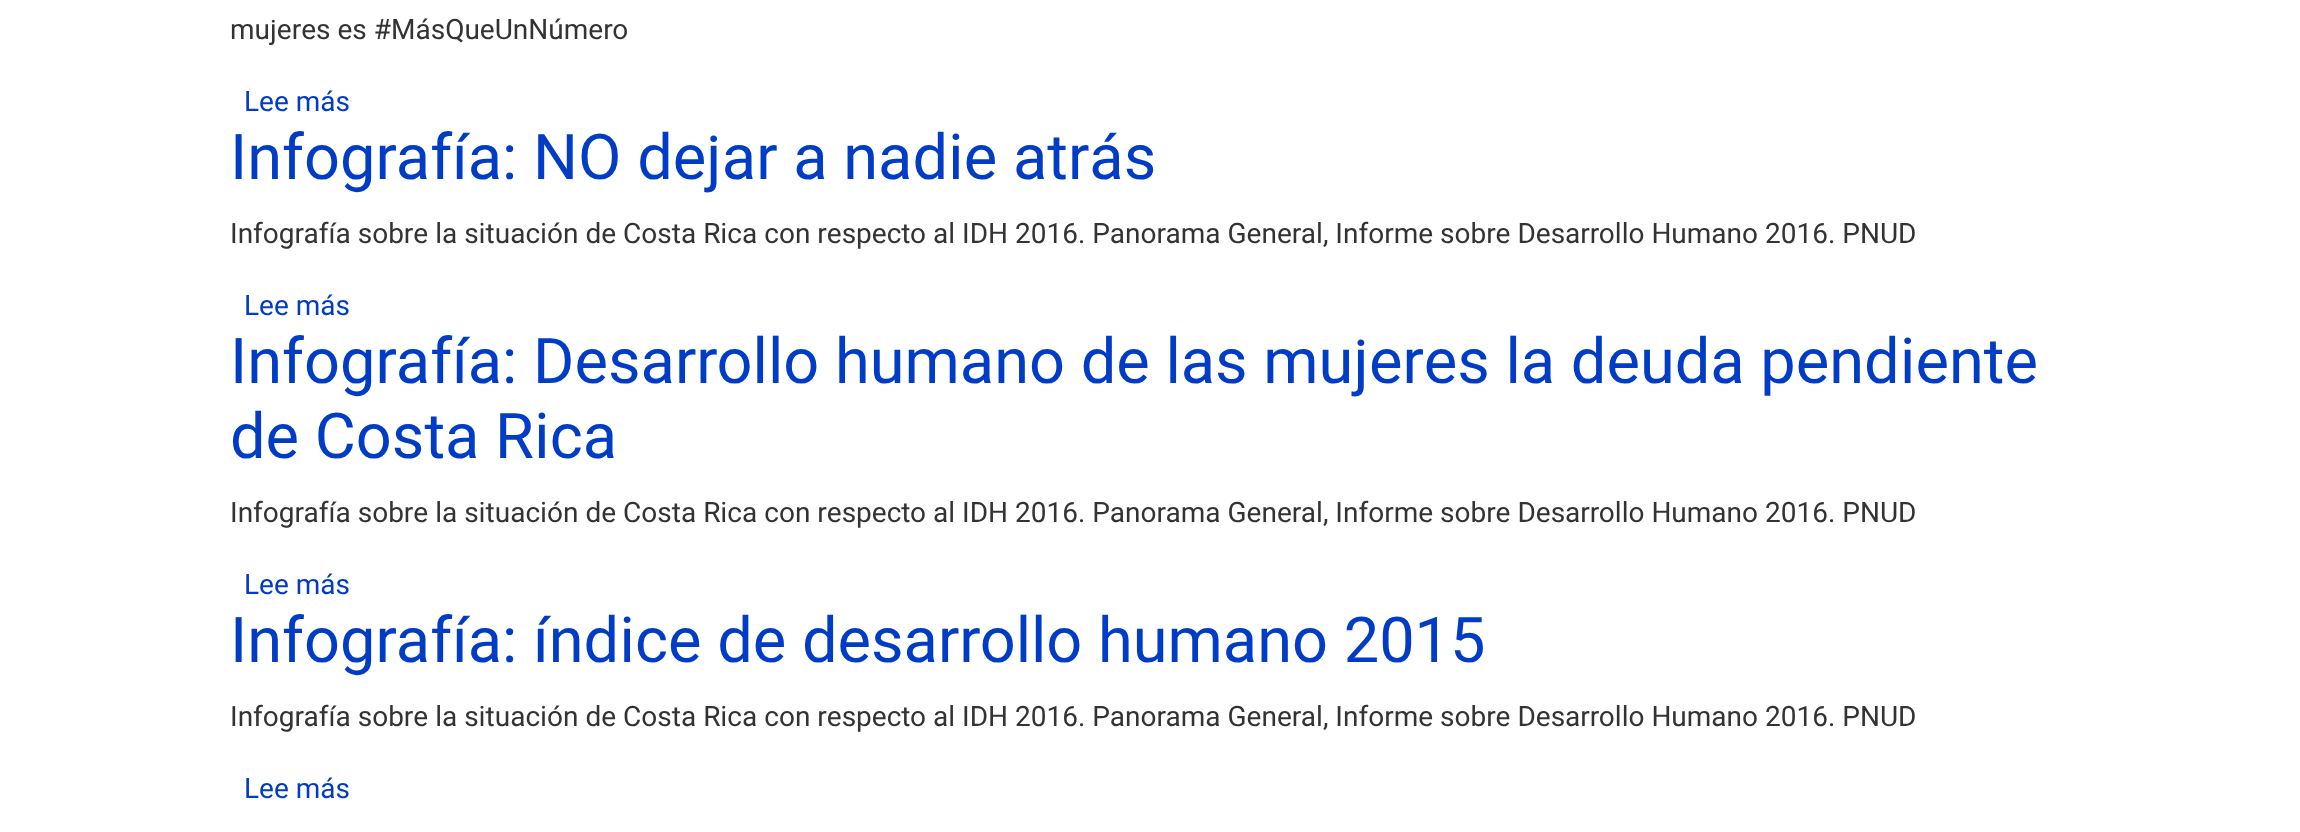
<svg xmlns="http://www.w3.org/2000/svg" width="2300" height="832">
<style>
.a{font:28px Heebo;fill:#333}
.b{font:28px Heebo;fill:#003cc5}
.c{font:63.1px Heebo;fill:#003cc5}
</style>
<rect width="100%" height="100%" fill="#fff"/>
<text class="a" x="230" y="39">mujeres es #MásQueUnNúmero</text>
<text class="b" x="244" y="111">Lee más</text>
<text class="c" x="230" y="179">Infografía: NO dejar a nadie atrás</text>
<text class="a" x="230" y="243">Infografía sobre la situación de Costa Rica con respecto al IDH 2016. Panorama General, Informe sobre Desarrollo Humano 2016. PNUD</text>
<text class="b" x="244" y="315">Lee más</text>
<text class="c" x="230" y="383">Infografía: Desarrollo humano de las mujeres la deuda pendiente</text>
<text class="c" x="230" y="458">de Costa Rica</text>
<text class="a" x="230" y="522">Infografía sobre la situación de Costa Rica con respecto al IDH 2016. Panorama General, Informe sobre Desarrollo Humano 2016. PNUD</text>
<text class="b" x="244" y="594">Lee más</text>
<text class="c" x="230" y="662">Infografía: índice de desarrollo humano 2015</text>
<text class="a" x="230" y="726">Infografía sobre la situación de Costa Rica con respecto al IDH 2016. Panorama General, Informe sobre Desarrollo Humano 2016. PNUD</text>
<text class="b" x="244" y="798">Lee más</text>
</svg>
